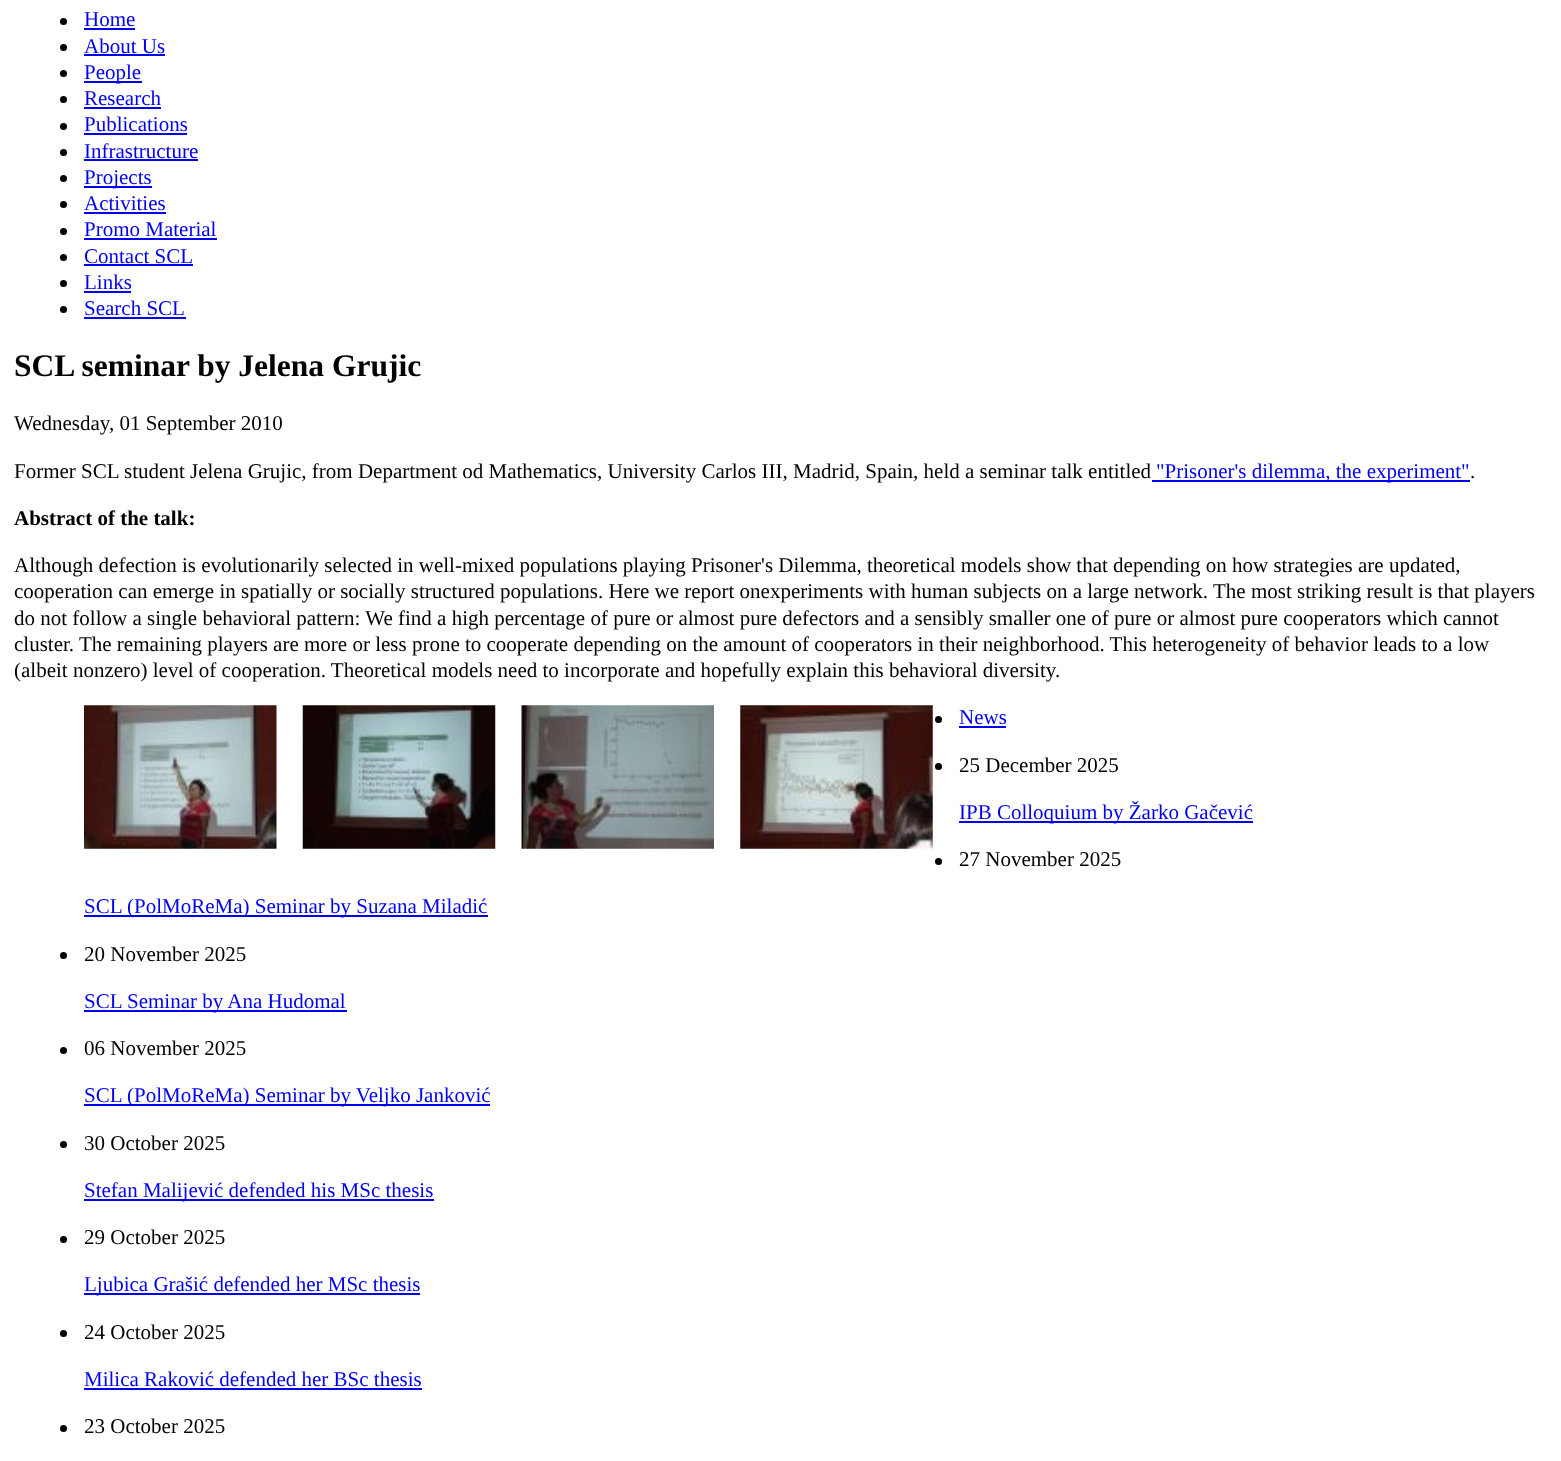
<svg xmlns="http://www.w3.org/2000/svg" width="1561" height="1461">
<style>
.a{font:21px Liberation Serif;fill:#00e}
.b{font:bold 31.5px Liberation Serif;fill:#000}
.c{font:21px Liberation Serif;fill:#000}
.d{font:bold 21px Liberation Serif;fill:#000}
</style>
<rect width="100%" height="100%" fill="#fff"/>
<circle fill="#000" cx="63.5" cy="21.5" r="3.5"/>
<path fill="#00e" d="M84 28h51v2H84z"/>
<circle fill="#000" cx="63.5" cy="47.5" r="3.5"/>
<path fill="#00e" d="M84 54h81v2H84z"/>
<circle fill="#000" cx="63.5" cy="73.5" r="3.5"/>
<path fill="#00e" d="M84 81h58v2H84z"/>
<circle fill="#000" cx="63.5" cy="99.5" r="3.5"/>
<path fill="#00e" d="M84 107h77v2H84z"/>
<circle fill="#000" cx="63.5" cy="126.5" r="3.5"/>
<path fill="#00e" d="M84 133h103v2H84z"/>
<circle fill="#000" cx="63.5" cy="152.5" r="3.5"/>
<path fill="#00e" d="M84 159h114v2H84z"/>
<circle fill="#000" cx="63.5" cy="178.5" r="3.5"/>
<path fill="#00e" d="M84 186h68v2H84z"/>
<circle fill="#000" cx="63.5" cy="204.5" r="3.5"/>
<path fill="#00e" d="M84 212h82v2H84z"/>
<circle fill="#000" cx="63.5" cy="231.5" r="3.5"/>
<path fill="#00e" d="M84 238h133v2H84z"/>
<circle fill="#000" cx="63.5" cy="257.5" r="3.5"/>
<path fill="#00e" d="M84 264h109v2H84z"/>
<circle fill="#000" cx="63.5" cy="283.5" r="3.5"/>
<path fill="#00e" d="M84 291h47v2H84z"/>
<circle fill="#000" cx="63.5" cy="309.5" r="3.5"/>
<path fill="#00e" d="M84 317h102v2H84z"/>
<path fill="#00e" d="M1152 480h318v2H1152z"/>
<image href="1.png" x="84" y="705" width="193" height="144"/>
<image href="2.png" x="302" y="705" width="194" height="144"/>
<image href="3.png" x="521" y="705" width="193" height="144"/>
<image href="4.png" x="740" y="705" width="193" height="144"/>
<circle fill="#000" cx="938.5" cy="719.5" r="3.5"/>
<path fill="#00e" d="M959 726h47v2H959z"/>
<circle fill="#000" cx="938.5" cy="766.5" r="3.5"/>
<path fill="#00e" d="M959 821h294v2H959z"/>
<circle fill="#000" cx="938.5" cy="861.5" r="3.5"/>
<path fill="#00e" d="M84 915h404v2H84z"/>
<circle fill="#000" cx="63.5" cy="955.5" r="3.5"/>
<path fill="#00e" d="M84 1010h263v2H84z"/>
<circle fill="#000" cx="63.5" cy="1050.5" r="3.5"/>
<path fill="#00e" d="M84 1104h406v2H84z"/>
<circle fill="#000" cx="63.5" cy="1144.5" r="3.5"/>
<path fill="#00e" d="M84 1199h350v2H84z"/>
<circle fill="#000" cx="63.5" cy="1239.5" r="3.5"/>
<path fill="#00e" d="M84 1293h336v2H84z"/>
<circle fill="#000" cx="63.5" cy="1333.5" r="3.5"/>
<path fill="#00e" d="M84 1388h338v2H84z"/>
<circle fill="#000" cx="63.5" cy="1428.5" r="3.5"/>
<text class="a" x="84" y="26">Home</text>
<text class="a" x="84" y="53">About Us</text>
<text class="a" x="84" y="79">People</text>
<text class="a" x="84" y="105">Research</text>
<text class="a" x="84" y="131">Publications</text>
<text class="a" x="84" y="158">Infrastructure</text>
<text class="a" x="84" y="184">Projects</text>
<text class="a" x="84" y="210">Activities</text>
<text class="a" x="84" y="236">Promo Material</text>
<text class="a" x="84" y="263">Contact SCL</text>
<text class="a" x="84" y="289">Links</text>
<text class="a" x="84" y="315">Search SCL</text>
<text class="b" x="14" y="376">SCL seminar by Jelena Grujic</text>
<text class="c" x="14" y="430">Wednesday, 01 September 2010</text>
<text class="c" x="14" y="478">Former SCL student Jelena Grujic, from Department od Mathematics, University Carlos III, Madrid, Spain, held a seminar talk entitled</text>
<text class="a" x="1156" y="478">"Prisoner's dilemma, the experiment"</text>
<text class="c" x="1470" y="478">.</text>
<text class="d" x="14" y="525">Abstract of the talk:</text>
<text class="c" x="14" y="572">Although defection is evolutionarily selected in well‐mixed populations playing Prisoner's Dilemma, theoretical models show that depending on how strategies are updated,</text>
<text class="c" x="14" y="598">cooperation can emerge in spatially or socially structured populations. Here we report onexperiments with human subjects on a large network. The most striking result is that players</text>
<text class="c" x="14" y="625">do not follow a single behavioral pattern: We find a high percentage of pure or almost pure defectors and a sensibly smaller one of pure or almost pure cooperators which cannot</text>
<text class="c" x="14" y="651">cluster. The remaining players are more or less prone to cooperate depending on the amount of cooperators in their neighborhood. This heterogeneity of behavior leads to a low</text>
<text class="c" x="14" y="677">(albeit nonzero) level of cooperation. Theoretical models need to incorporate and hopefully explain this behavioral diversity.</text>
<text class="a" x="959" y="724">News</text>
<text class="c" x="959" y="772">25 December 2025</text>
<text class="a" x="959" y="819">IPB Colloquium by Žarko Gačević</text>
<text class="c" x="959" y="866">27 November 2025</text>
<text class="a" x="84" y="913">SCL (PolMoReMa) Seminar by Suzana Miladić</text>
<text class="c" x="84" y="961">20 November 2025</text>
<text class="a" x="84" y="1008">SCL Seminar by Ana Hudomal</text>
<text class="c" x="84" y="1055">06 November 2025</text>
<text class="a" x="84" y="1102">SCL (PolMoReMa) Seminar by Veljko Janković</text>
<text class="c" x="84" y="1150">30 October 2025</text>
<text class="a" x="84" y="1197">Stefan Malijević defended his MSc thesis</text>
<text class="c" x="84" y="1244">29 October 2025</text>
<text class="a" x="84" y="1291">Ljubica Grašić defended her MSc thesis</text>
<text class="c" x="84" y="1339">24 October 2025</text>
<text class="a" x="84" y="1386">Milica Raković defended her BSc thesis</text>
<text class="c" x="84" y="1433">23 October 2025</text>
</svg>
